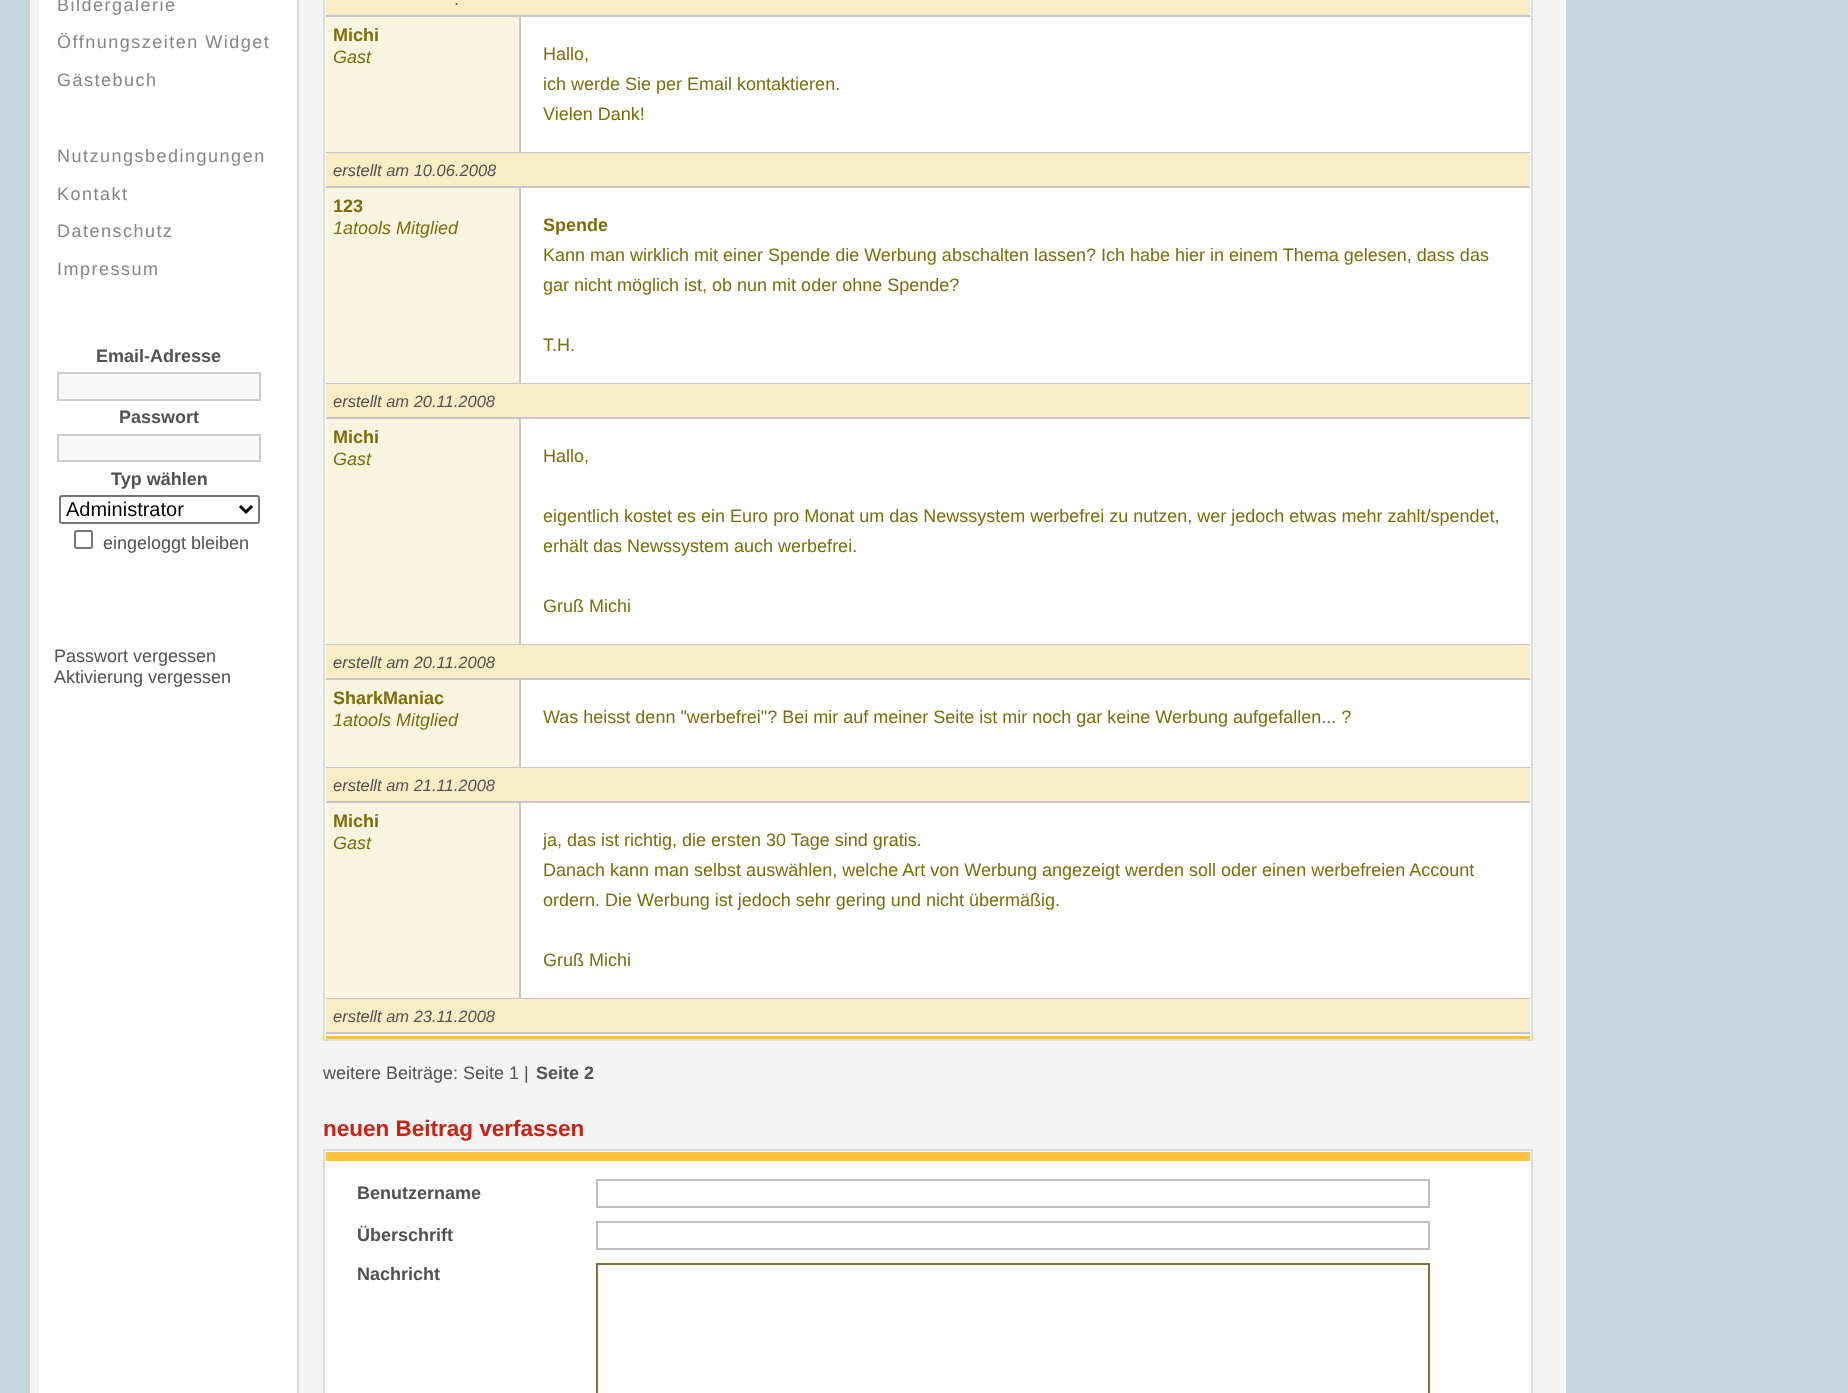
<svg xmlns="http://www.w3.org/2000/svg" width="1848" height="1393">
<style>
.a{font:18px Liberation Sans;letter-spacing:1.5px;fill:#878585}
.b{font:bold 18px Liberation Sans;fill:#525252}
.c{font:20px Liberation Sans;fill:#000}
.d{font:18px Liberation Sans;fill:#525252}
.e{font:italic 16.5px Liberation Sans;fill:#525252}
.f{font:bold 18px Liberation Sans;fill:#7e6d0a}
.g{font:italic 18px Liberation Sans;fill:#7e6d0a}
.h{font:18px Liberation Sans;fill:#7e6d0a}
.i{font:bold 22.5px Liberation Sans;fill:#c82317}
</style>
<rect width="100%" height="100%" fill="#c6d6df"/>
<path fill="#f4f4f4" d="M30 0h1536v1393H30z"/>
<path fill="#fff" d="M39 0h258v1393H39z"/>
<path fill="#dbdbdb" d="M297 0h2v1393H297z"/>
<path fill="#f8f8f8" stroke="#cdcdcd" stroke-width="2" d="M58 373h202v27H58z"/>
<path fill="#f8f8f8" stroke="#cdcdcd" stroke-width="2" d="M58 435h202v26H58z"/>
<rect fill="none" stroke="#767676" stroke-width="2" x="60" y="496" width="199" height="27" rx="2"/>
<path fill="none" stroke="#000" stroke-width="3" d="M240 506l6 6l6-6"/>
<rect fill="none" stroke="#767676" stroke-width="2" x="75" y="531" width="17" height="17" rx="2"/>
<path fill="#fff" stroke="#ddd" stroke-width="2" d="M324 -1h1208v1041H324z"/>
<path fill="#faedc5" d="M326 0h1204v15H326z"/>
<path fill="#c7c7c7" d="M326 15h1204v2H326z"/>
<path fill="#f7f4df" d="M326 17h193v135H326z"/>
<path fill="#c7c7c7" d="M519 17h2v136H519z"/>
<path fill="#c7c7c7" d="M326 152h1204v1H326z"/>
<path fill="#faedc5" d="M326 153h1204v33H326z"/>
<path fill="#c7c7c7" d="M326 186h1204v2H326z"/>
<path fill="#f7f4df" d="M326 188h193v195H326z"/>
<path fill="#c7c7c7" d="M519 188h2v196H519z"/>
<path fill="#c7c7c7" d="M326 383h1204v1H326z"/>
<path fill="#faedc5" d="M326 384h1204v33H326z"/>
<path fill="#c7c7c7" d="M326 417h1204v2H326z"/>
<path fill="#f7f4df" d="M326 419h193v225H326z"/>
<path fill="#c7c7c7" d="M519 419h2v226H519z"/>
<path fill="#c7c7c7" d="M326 644h1204v1H326z"/>
<path fill="#faedc5" d="M326 645h1204v33H326z"/>
<path fill="#c7c7c7" d="M326 678h1204v2H326z"/>
<path fill="#f7f4df" d="M326 680h193v87H326z"/>
<path fill="#c7c7c7" d="M519 680h2v88H519z"/>
<path fill="#c7c7c7" d="M326 767h1204v1H326z"/>
<path fill="#faedc5" d="M326 768h1204v33H326z"/>
<path fill="#c7c7c7" d="M326 801h1204v2H326z"/>
<path fill="#f7f4df" d="M326 803h193v195H326z"/>
<path fill="#c7c7c7" d="M519 803h2v196H519z"/>
<path fill="#c7c7c7" d="M326 998h1204v1H326z"/>
<path fill="#faedc5" d="M326 999h1204v33H326z"/>
<path fill="#c7c7c7" d="M326 1032h1204v2H326z"/>
<path fill="#ffc03a" d="M326 1036h1204v3H326z"/>
<path fill="#fff" stroke="#ddd" stroke-width="2" d="M324 1150h1208v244H324z"/>
<path fill="#ffc03a" d="M326 1152h1204v9H326z"/>
<path fill="none" stroke="#c0c0c0" stroke-width="2" d="M597 1180h832v27H597z"/>
<path fill="none" stroke="#c0c0c0" stroke-width="2" d="M597 1222h832v27H597z"/>
<path fill="none" stroke="#827039" stroke-width="2" d="M597 1264h832v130H597z"/>
<text class="a" x="57" y="11">Bildergalerie</text>
<text class="a" x="57" y="48">Öffnungszeiten Widget</text>
<text class="a" x="57" y="86">Gästebuch</text>
<text class="a" x="57" y="162">Nutzungsbedingungen</text>
<text class="a" x="57" y="200">Kontakt</text>
<text class="a" x="57" y="237">Datenschutz</text>
<text class="a" x="57" y="275">Impressum</text>
<text class="b" x="96" y="362">Email-Adresse</text>
<text class="b" x="119" y="423">Passwort</text>
<text class="b" x="111" y="485">Typ wählen</text>
<text class="c" x="66" y="516">Administrator</text>
<text class="d" x="103" y="549">eingeloggt bleiben</text>
<text class="d" x="54" y="662">Passwort vergessen</text>
<text class="d" x="54" y="683">Aktivierung vergessen</text>
<text class="e" x="455" y="5">.</text>
<text class="f" x="333" y="41">Michi</text>
<text class="g" x="333" y="63">Gast</text>
<text class="h" x="543" y="60">Hallo,</text>
<text class="h" x="543" y="90">ich werde Sie per Email kontaktieren.</text>
<text class="h" x="543" y="120">Vielen Dank!</text>
<text class="e" x="333" y="176">erstellt am 10.06.2008</text>
<text class="f" x="333" y="212">123</text>
<text class="g" x="333" y="234">1atools Mitglied</text>
<text class="f" x="543" y="231">Spende</text>
<text class="h" x="543" y="261">Kann man wirklich mit einer Spende die Werbung abschalten lassen? Ich habe hier in einem Thema gelesen, dass das</text>
<text class="h" x="543" y="291">gar nicht möglich ist, ob nun mit oder ohne Spende?</text>
<text class="h" x="543" y="351">T.H.</text>
<text class="e" x="333" y="407">erstellt am 20.11.2008</text>
<text class="f" x="333" y="443">Michi</text>
<text class="g" x="333" y="465">Gast</text>
<text class="h" x="543" y="462">Hallo,</text>
<text class="h" x="543" y="522">eigentlich kostet es ein Euro pro Monat um das Newssystem werbefrei zu nutzen, wer jedoch etwas mehr zahlt/spendet,</text>
<text class="h" x="543" y="552">erhält das Newssystem auch werbefrei.</text>
<text class="h" x="543" y="612">Gruß Michi</text>
<text class="e" x="333" y="668">erstellt am 20.11.2008</text>
<text class="f" x="333" y="704">SharkManiac</text>
<text class="g" x="333" y="726">1atools Mitglied</text>
<text class="h" x="543" y="723">Was heisst denn "werbefrei"? Bei mir auf meiner Seite ist mir noch gar keine Werbung aufgefallen... ?</text>
<text class="e" x="333" y="791">erstellt am 21.11.2008</text>
<text class="f" x="333" y="827">Michi</text>
<text class="g" x="333" y="849">Gast</text>
<text class="h" x="543" y="846">ja, das ist richtig, die ersten 30 Tage sind gratis.</text>
<text class="h" x="543" y="876">Danach kann man selbst auswählen, welche Art von Werbung angezeigt werden soll oder einen werbefreien Account</text>
<text class="h" x="543" y="906">ordern. Die Werbung ist jedoch sehr gering und nicht übermäßig.</text>
<text class="h" x="543" y="966">Gruß Michi</text>
<text class="e" x="333" y="1022">erstellt am 23.11.2008</text>
<text class="d" x="323" y="1079">weitere Beiträge: Seite 1 |</text>
<text class="b" x="536" y="1079">Seite 2</text>
<text class="i" x="323" y="1136">neuen Beitrag verfassen</text>
<text class="b" x="357" y="1199">Benutzername</text>
<text class="b" x="357" y="1241">Überschrift</text>
<text class="b" x="357" y="1280">Nachricht</text>
</svg>
